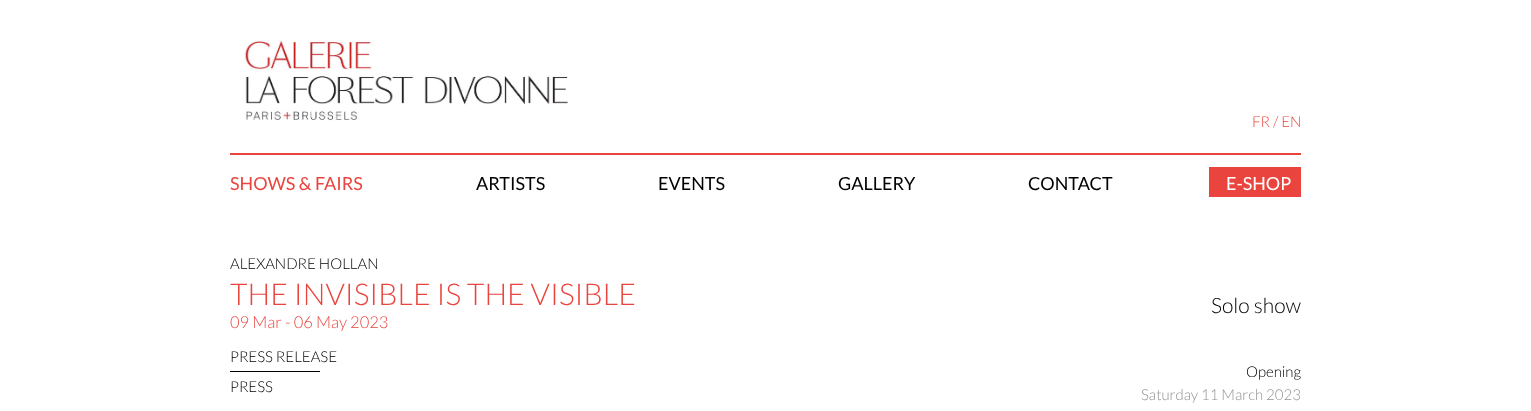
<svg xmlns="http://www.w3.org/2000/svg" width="1531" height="411">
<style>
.a{font:300 15px Lato;fill:#e9453e}
.b{font:18px Lato;fill:#e9453e}
.c{font:18px Lato;fill:#000}
.d{font:18px Lato;fill:#fff}
.e{font:300 15px Lato;fill:#000}
.f{font:300 30px Lato;fill:#e9453e}
.g{font:300 16.5px Lato;fill:#e9453e}
.h{font:300 21px Lato;fill:#000}
.i{font:300 15px Lato;fill:#939393}
</style>
<rect width="100%" height="100%" fill="#fff"/>
<path fill="#e9453e" d="M230 153h1071v2H230z"/>
<image href="1.png" x="244" y="40" width="324" height="81"/>
<path fill="#e9453e" d="M1209 167h92v30H1209z"/>
<path fill="#000" d="M230 371h90v1H230z"/>
<text class="a" x="1252" y="127">FR / EN</text>
<text class="b" x="230" y="190">SHOWS &amp; FAIRS</text>
<text class="c" x="476" y="190">ARTISTS</text>
<text class="c" x="658" y="190">EVENTS</text>
<text class="c" x="838" y="190">GALLERY</text>
<text class="c" x="1028" y="190">CONTACT</text>
<text class="d" x="1226" y="190">E-SHOP</text>
<text class="e" x="230" y="269">ALEXANDRE HOLLAN</text>
<text class="f" x="230" y="305">THE INVISIBLE IS THE VISIBLE</text>
<text class="g" x="230" y="328">09 Mar - 06 May 2023</text>
<text class="e" x="230" y="362">PRESS RELEASE</text>
<text class="e" x="230" y="392">PRESS</text>
<text class="h" x="1211" y="313">Solo show</text>
<text class="e" x="1246" y="377">Opening</text>
<text class="i" x="1141" y="400">Saturday 11 March 2023</text>
</svg>
